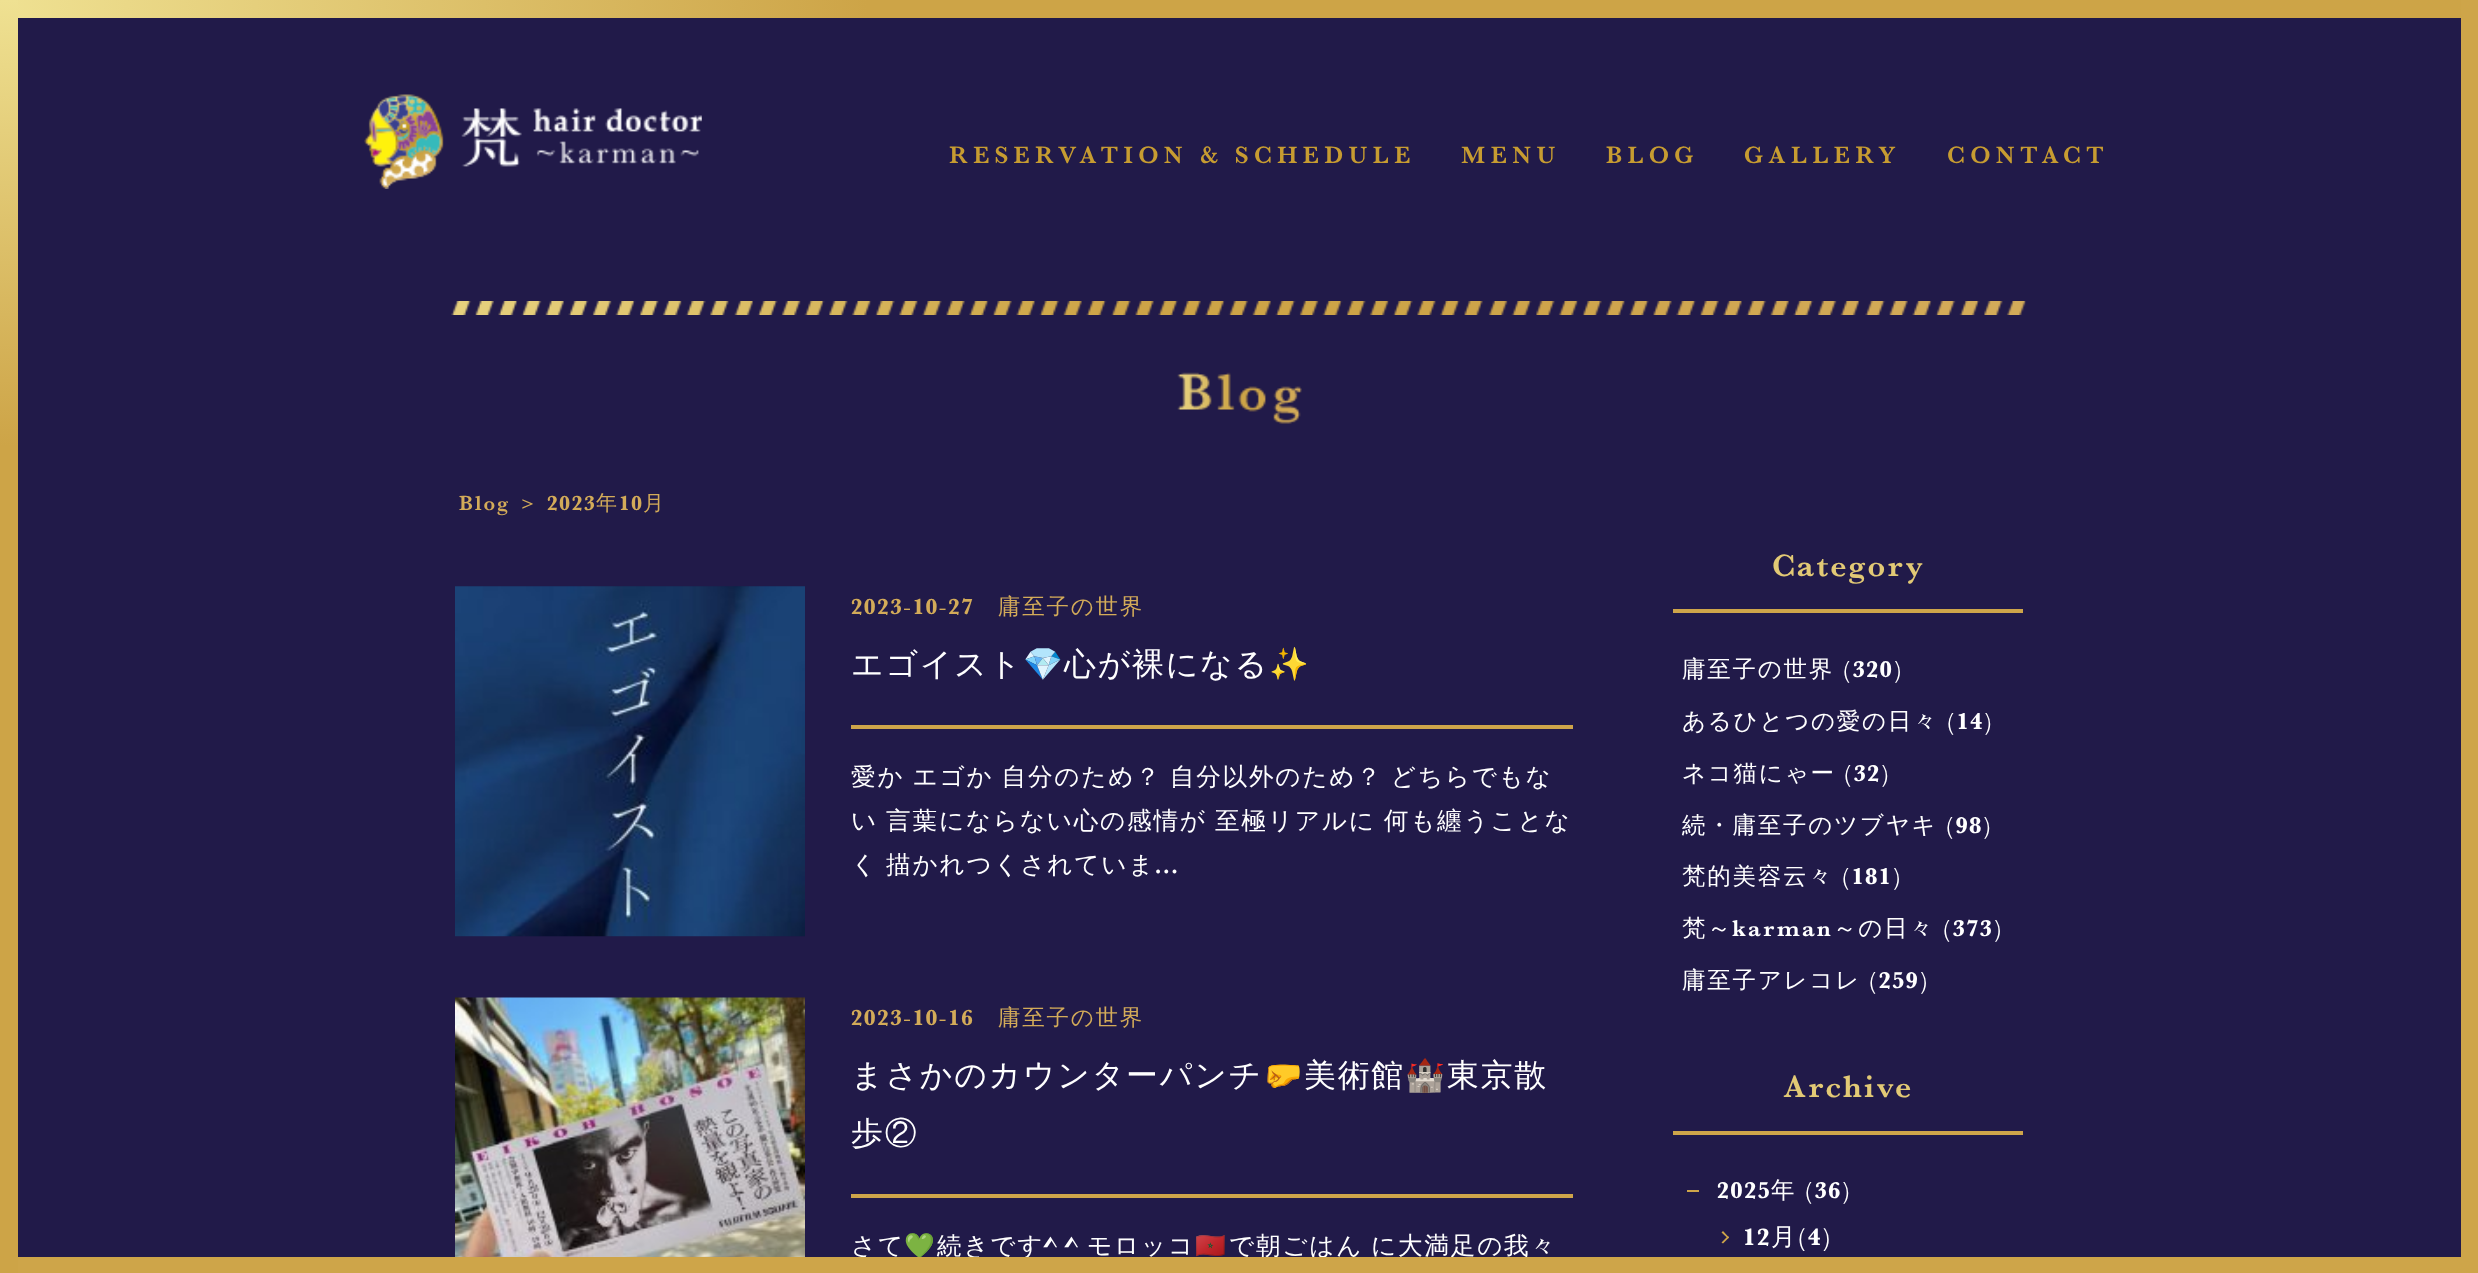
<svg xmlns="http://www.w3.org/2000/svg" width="2478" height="1273">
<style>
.a{font:24.5px 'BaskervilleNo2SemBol';letter-spacing:5.25px;fill:#c79c31}
.b{font:21px 'BaskervilleNo2SemBol';letter-spacing:1.75px;fill:#d3ab59}
.c{font:500 21px WenQuanYi Zen Hei;letter-spacing:1.75px;fill:#d3ab59}
.d{font:22.5px 'BaskervilleNo2SemBol';letter-spacing:1.75px;fill:#d3ab59}
.e{font:500 22.5px WenQuanYi Zen Hei;letter-spacing:1.75px;fill:#d3ab59}
.f{font:500 31.9px WenQuanYi Zen Hei;letter-spacing:1.75px;fill:#fff}
.g{font:31.9px Noto Color Emoji;letter-spacing:1.75px;fill:#fff}
.h{font:500 24.65px WenQuanYi Zen Hei;letter-spacing:1.75px;fill:#fff}
.i{font:24.65px 'BaskervilleNo2SemBol';letter-spacing:1.75px;fill:#fff}
.j{font:24.65px Noto Color Emoji;letter-spacing:1.75px;fill:#fff}
.k{font:31.9px 'BaskervilleNo2SemBol';letter-spacing:1.75px;fill:#e2c975}
.l{font:500 23.5px WenQuanYi Zen Hei;letter-spacing:1.75px;fill:#fff}
.m{font:23.5px 'BaskervilleNo2SemBol';letter-spacing:1.75px;fill:#fff}
.n{font:24.5px 'BaskervilleNo2SemBol';letter-spacing:1.75px;fill:#fff}
.o{font:500 24.5px WenQuanYi Zen Hei;letter-spacing:1.75px;fill:#fff}
</style>
<defs>
<linearGradient id="g1" gradientUnits="userSpaceOnUse" x1="9" y1="0" x2="9" y2="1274"><stop offset="0" stop-color="#efe192"/><stop offset="0.35" stop-color="#cda447"/></linearGradient>
<linearGradient id="g2" gradientUnits="userSpaceOnUse" x1="0" y1="9" x2="2478" y2="9"><stop offset="0" stop-color="#efe192"/><stop offset="0.35" stop-color="#cda447"/></linearGradient>
</defs>
<rect width="100%" height="100%" fill="#211a49"/>
<path fill="url(#g1)" d="M0 0h18v1273H0z"/>
<path fill="url(#g2)" d="M18 0h2443v18H18z"/>
<path fill="#cea549" d="M2461 0h17v1257H2461z"/>
<image href="1.png" x="364" y="94" width="338" height="95"/>
<image href="2.png" x="451" y="301" width="1575" height="14"/>
<image href="3.png" x="1177" y="372" width="125" height="52"/>
<image href="4.png" x="455" y="586" width="350" height="351"/>
<path fill="#cea54a" d="M851 725h722v4H851z"/>
<image href="5.png" x="455" y="997" width="350" height="260"/>
<path fill="#cea54a" d="M851 1194h722v4H851z"/>
<path fill="#cea54a" d="M1673 609h350v4H1673z"/>
<path fill="#cea54a" d="M1673 1131h350v4H1673z"/>
<path fill="#cea54a" d="M1687 1190h12v2H1687z"/>
<path fill="#cea54a" d="M1721.5 1232.5l1.5-1.5l6 6.5l-1 1z"/>
<path fill="#cea54a" d="M1721.5 1242.5l6.5-6.5l1 1.5l-6 6z"/>
<text class="a" x="949" y="163">RESERVATION &amp; SCHEDULE</text>
<text class="a" x="1461" y="163">MENU</text>
<text class="a" x="1606" y="163">BLOG</text>
<text class="a" x="1744" y="163">GALLERY</text>
<text class="a" x="1947" y="163">CONTACT</text>
<text class="b" x="459" y="510">Blog</text>
<text class="c" x="517" y="510">＞</text>
<text class="b" x="547" y="510">2023</text>
<text class="c" x="596" y="510">年</text>
<text class="b" x="619" y="510">10</text>
<text class="c" x="643" y="510">月</text>
<text class="d" x="851" y="614">2023-10-27</text>
<text class="e" x="998" y="614">庸至子の世界</text>
<text class="f" x="851" y="675">エゴイスト</text>
<text class="g" x="1023" y="675">💎</text>
<text class="f" x="1064" y="675">心が裸になる</text>
<text class="g" x="1269" y="675">✨</text>
<text class="h" x="851" y="785" word-spacing="-1">愛か エゴか 自分のため？ 自分以外のため？ どちらでもな</text>
<text class="h" x="851" y="829" word-spacing="-1">い 言葉にならない心の感情が 至極リアルに 何も纏うことな</text>
<text class="h" x="851" y="873" word-spacing="-1">く 描かれつくされていま</text>
<text class="i" x="1154" y="873">…</text>
<text class="d" x="851" y="1025">2023-10-16</text>
<text class="e" x="998" y="1025">庸至子の世界</text>
<text class="f" x="851" y="1086">まさかのカウンターパンチ</text>
<text class="g" x="1263" y="1086">🤛</text>
<text class="f" x="1304" y="1086">美術館</text>
<text class="g" x="1405" y="1086">🏰</text>
<text class="f" x="1447" y="1086">東京散</text>
<text class="f" x="851" y="1144">歩②</text>
<text class="h" x="851" y="1254">さて</text>
<text class="j" x="904" y="1254">💚</text>
<text class="h" x="937" y="1254">続きです</text>
<text class="i" x="1044" y="1254" word-spacing="-1">^ ^</text>
<text class="h" x="1087" y="1254">モロッコ</text>
<text class="j" x="1195" y="1254">🇲🇦</text>
<text class="h" x="1229" y="1254">で朝ごはん</text>
<text class="h" x="1371" y="1254">に大満足の我々</text>
<text class="k" x="1772" y="576">Category</text>
<text class="l" x="1682" y="677">庸至子の世界</text>
<text class="m" x="1842" y="677">(320)</text>
<text class="l" x="1682" y="729">あるひとつの愛の日々</text>
<text class="m" x="1946" y="729">(14)</text>
<text class="l" x="1682" y="781">ネコ猫にゃー</text>
<text class="m" x="1843" y="781">(32)</text>
<text class="l" x="1682" y="833">続・庸至子のツブヤキ</text>
<text class="m" x="1945" y="833">(98)</text>
<text class="l" x="1682" y="884">梵的美容云々</text>
<text class="m" x="1841" y="884">(181)</text>
<text class="l" x="1682" y="936">梵～</text>
<text class="m" x="1732" y="936">karman</text>
<text class="l" x="1833" y="936">～の日々</text>
<text class="m" x="1942" y="936">(373)</text>
<text class="l" x="1682" y="988">庸至子アレコレ</text>
<text class="m" x="1868" y="988">(259)</text>
<text class="k" x="1783" y="1097">Archive</text>
<text class="m" x="1717" y="1198">2025</text>
<text class="l" x="1771" y="1198">年</text>
<text class="m" x="1804" y="1198">(36)</text>
<text class="n" x="1743" y="1245">12</text>
<text class="o" x="1771" y="1245">月</text>
<text class="n" x="1797" y="1245">(4)</text>
<path fill="#cea549" d="M18 1257h2460v16H18z"/>
</svg>
